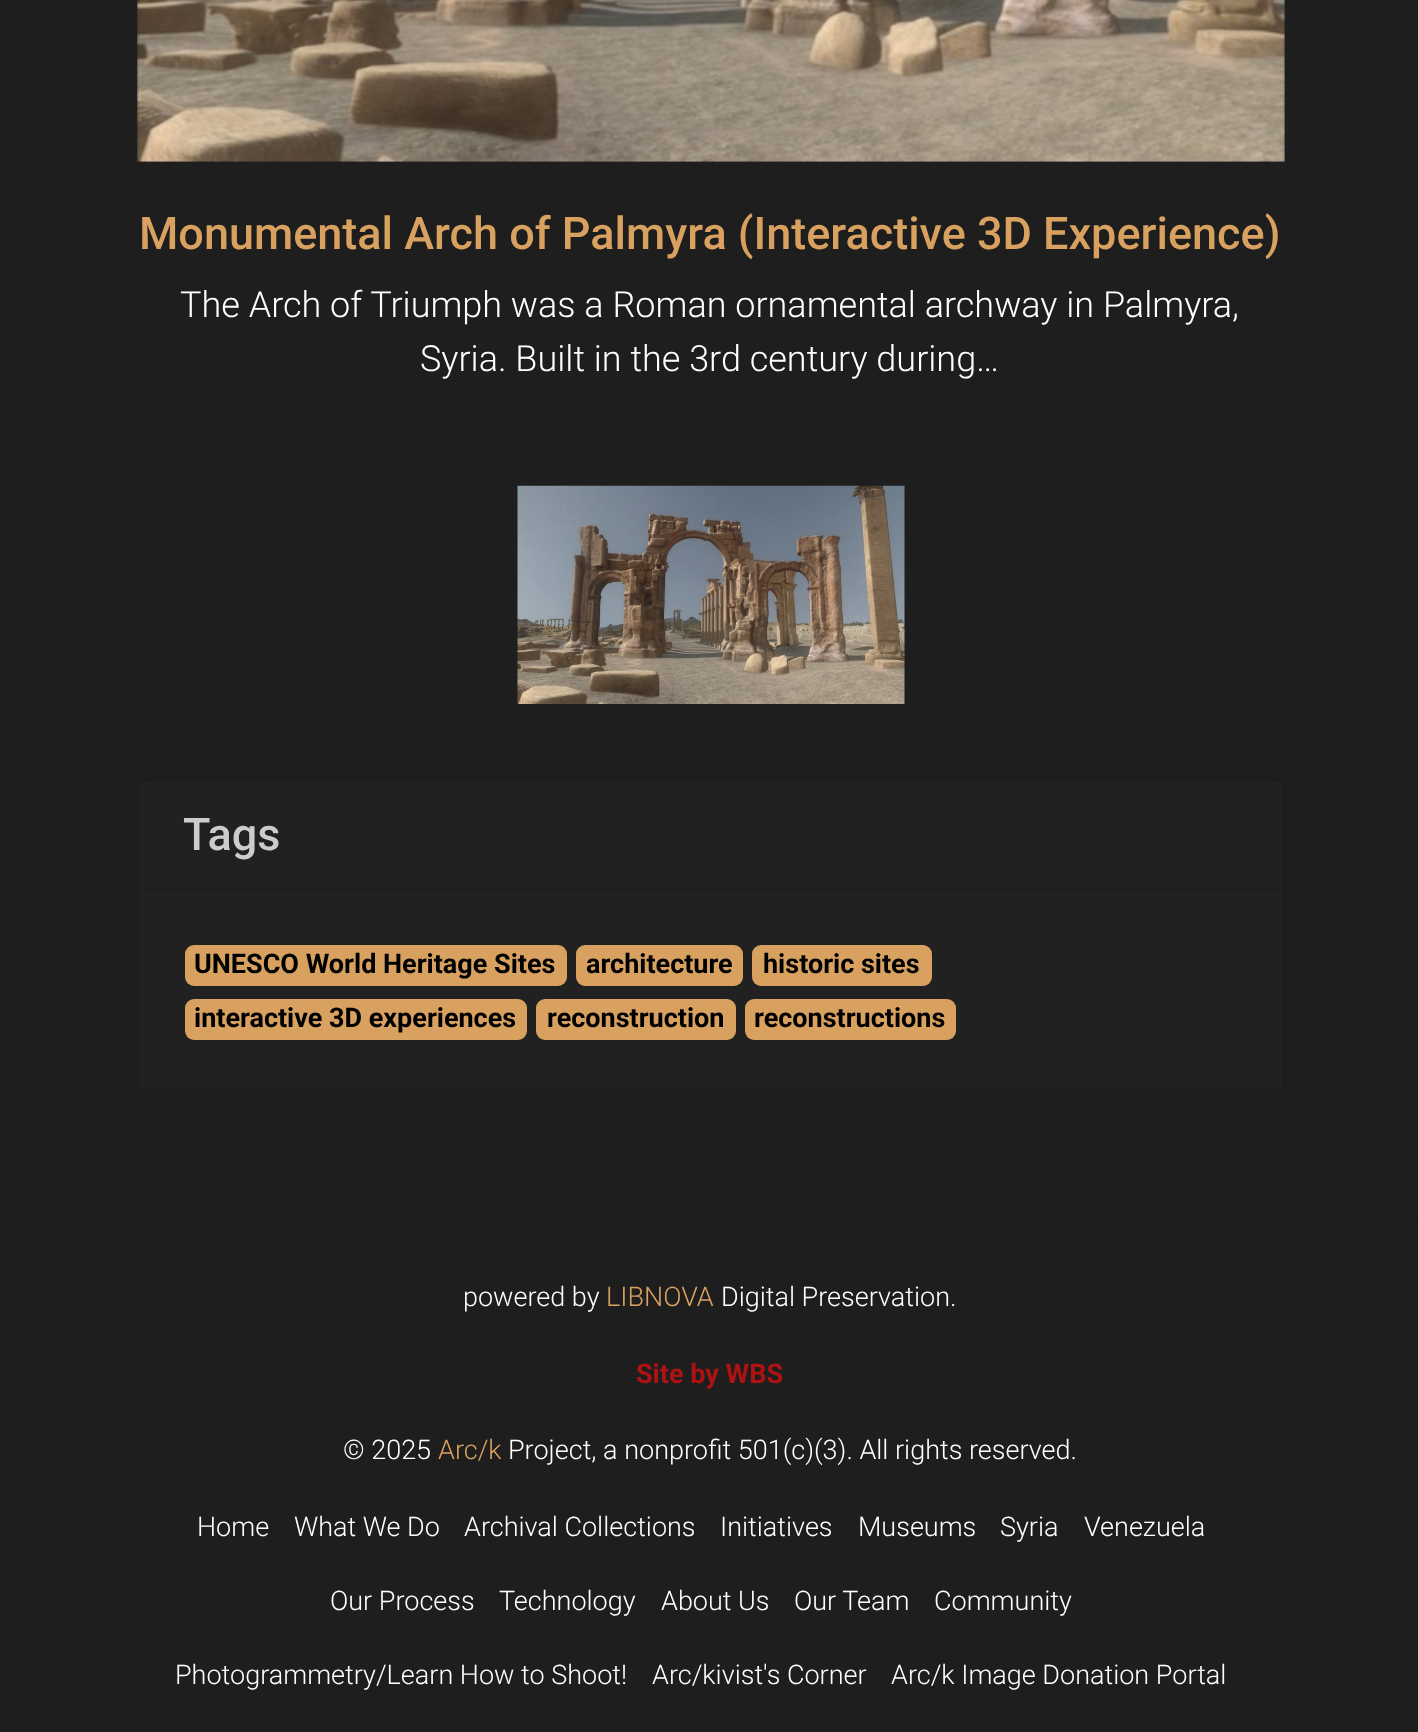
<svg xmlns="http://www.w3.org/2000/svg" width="1418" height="1732">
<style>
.a{font:500 45px Roboto;fill:#d9a160}
.b{font:300 36px Roboto;fill:#fff}
.c{font:500 45px Roboto;fill:#ccc}
.d{font:bold 27px Roboto;fill:#000}
.e{font:300 27px Roboto;fill:#fff}
.f{font:300 27px Roboto;fill:#d9a160}
.g{font:bold 27px Roboto;fill:#ad1313}
</style>
<rect width="100%" height="100%" fill="#1e1e1e"/>
<image href="1.png" x="137" y="0" width="1148" height="162"/>
<image href="2.png" x="517" y="485" width="388" height="219"/>
<path fill="#1b1b1b" d="M137 740h1148v2H137z"/>
<rect fill="#212121" stroke="#1d1d1d" stroke-width="2" x="138" y="780" width="1146" height="310" rx="8"/>
<path fill="#1d1d1d" d="M140 889h1143v2H140z"/>
<rect fill="#d9a160" x="185" y="945" width="382" height="41" rx="9"/>
<rect fill="#d9a160" x="576" y="945" width="167" height="41" rx="9"/>
<rect fill="#d9a160" x="752" y="945" width="180" height="41" rx="9"/>
<rect fill="#d9a160" x="185" y="999" width="342" height="41" rx="9"/>
<rect fill="#d9a160" x="536" y="999" width="200" height="41" rx="9"/>
<rect fill="#d9a160" x="745" y="999" width="211" height="41" rx="9"/>
<path fill="#1b1b1b" d="M0 1220h1418v2H0z"/>
<text class="a" x="139" y="249">Monumental Arch of Palmyra (Interactive 3D Experience)</text>
<text class="b" x="180" y="317">The Arch of Triumph was a Roman ornamental archway in Palmyra,</text>
<text class="b" x="420" y="371">Syria. Built in the 3rd century during…</text>
<text class="c" x="183" y="850">Tags</text>
<text class="d" x="194" y="973">UNESCO World Heritage Sites</text>
<text class="d" x="586" y="973">architecture</text>
<text class="d" x="763" y="973">historic sites</text>
<text class="d" x="194" y="1027">interactive 3D experiences</text>
<text class="d" x="547" y="1027">reconstruction</text>
<text class="d" x="754" y="1027">reconstructions</text>
<text class="e" x="463" y="1306">powered by</text>
<text class="f" x="606" y="1306">LIBNOVA</text>
<text class="e" x="721" y="1306">Digital Preservation.</text>
<text class="g" x="636" y="1383">Site by WBS</text>
<text class="e" x="343" y="1459">© 2025</text>
<text class="f" x="438" y="1459">Arc/k</text>
<text class="e" x="508" y="1459">Project, a nonprofit 501(c)(3). All rights reserved.</text>
<text class="e" x="197" y="1536">Home</text>
<text class="e" x="294" y="1536">What We Do</text>
<text class="e" x="464" y="1536">Archival Collections</text>
<text class="e" x="720" y="1536">Initiatives</text>
<text class="e" x="858" y="1536">Museums</text>
<text class="e" x="1000" y="1536">Syria</text>
<text class="e" x="1084" y="1536">Venezuela</text>
<text class="e" x="330" y="1610">Our Process</text>
<text class="e" x="499" y="1610">Technology</text>
<text class="e" x="661" y="1610">About Us</text>
<text class="e" x="794" y="1610">Our Team</text>
<text class="e" x="934" y="1610">Community</text>
<text class="e" x="175" y="1684">Photogrammetry/Learn How to Shoot!</text>
<text class="e" x="652" y="1684">Arc/kivist's Corner</text>
<text class="e" x="891" y="1684">Arc/k Image Donation Portal</text>
</svg>
